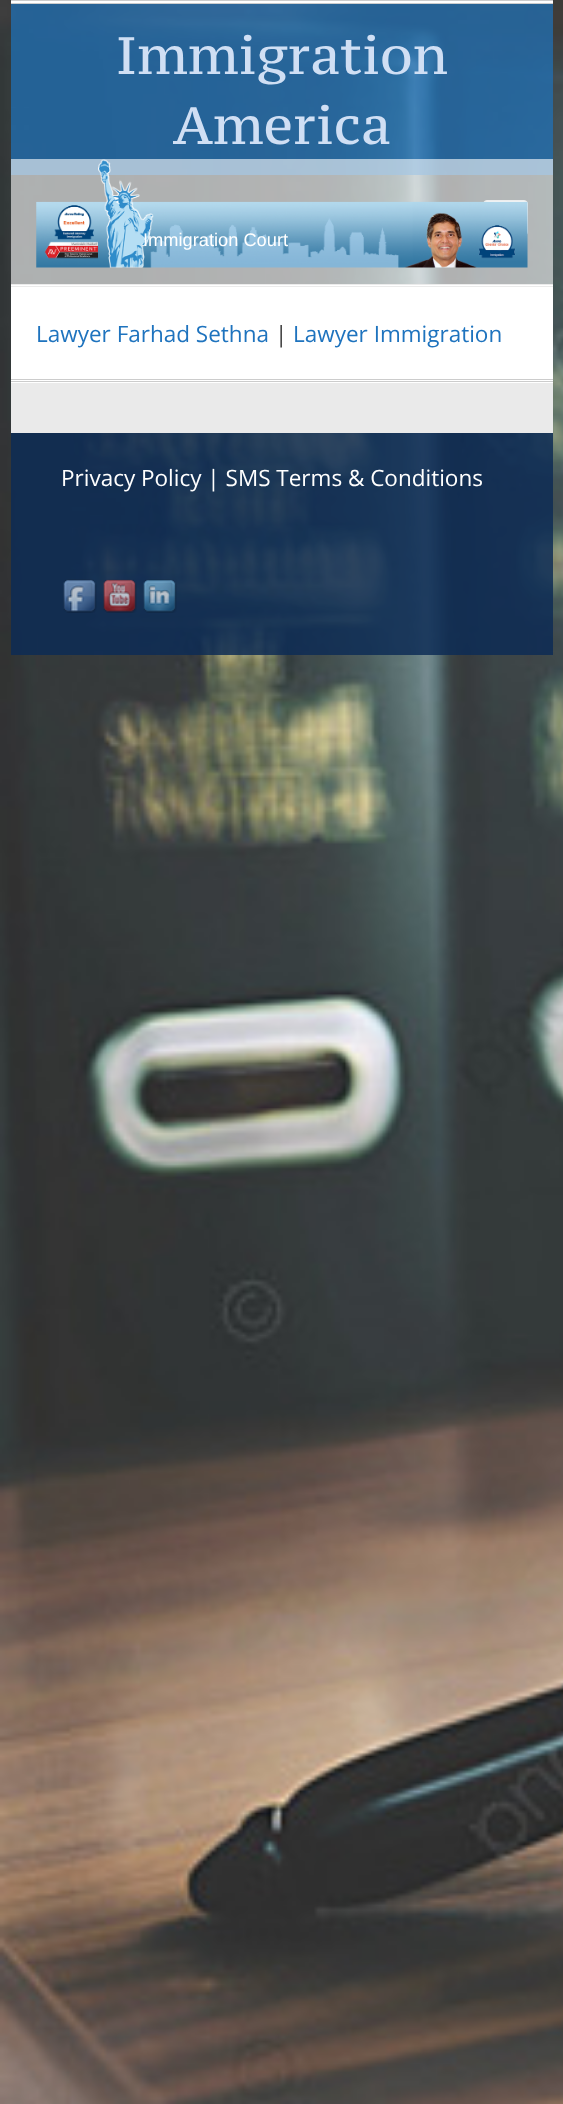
<svg xmlns="http://www.w3.org/2000/svg" width="563" height="2104">
<style>
.a{font:52.5px PT Serif Caption;fill:#d0dff4}
.b{font:18.25px Liberation Sans;fill:#fff}
.c{font:22.5px Open Sans;fill:#1e73be}
.d{font:22.5px Open Sans;fill:#3d3d3d}
.e{font:22.5px Open Sans;fill:#fff}
</style>
<rect width="100%" height="100%" fill="#fff"/>
<image href="1.png" x="0" y="0" width="563" height="2104"/>
<path fill="#fff" d="M11 1h542v2H11z"/>
<path fill="#ccc" d="M11 0h542v1H11z"/>
<path fill="#ccc" d="M11 3h542v1H11z"/>
<path fill="#1e73beb3" d="M11 4h542v171H11z"/>
<rect fill="#e6e6e6" stroke="#d2d2d2" x="483.5" y="200.5" width="44" height="35" rx="3.5"/>
<path fill="#fff" d="M11 285h542v98H11z"/>
<path fill="#ccc" d="M11 284h542v1H11z"/>
<path fill="#ccc" d="M11 286h542v1H11z"/>
<path fill="#ffffff99" d="M11 159h542v128H11z"/>
<image href="2.png" x="36" y="159" width="492" height="109"/>
<path fill="#ccc" d="M11 379h542v1H11z"/>
<path fill="#ccc" d="M11 381h542v1H11z"/>
<path fill="#eaeaea" d="M11 383h542v50H11z"/>
<path fill="#081535cc" d="M11 433h542v222H11z"/>
<path fill="#1e73be33" d="M11 433h542v120H11z"/>
<path fill="#1e73be33" d="M11 553h542v102H11z"/>
<image href="3.png" x="63" y="579" width="34" height="34"/>
<image href="4.png" x="103" y="579" width="34" height="34"/>
<image href="5.png" x="143" y="579" width="34" height="34"/>
<text class="a" x="116" y="74">Immigration</text>
<text class="a" x="173" y="144">America</text>
<text class="b" x="143" y="246">Immigration Court</text>
<text class="c" x="36" y="342">Lawyer Farhad Sethna</text>
<text class="d" x="275" y="342">|</text>
<text class="c" x="293" y="342">Lawyer Immigration</text>
<text class="e" x="61" y="486">Privacy Policy | SMS Terms &amp; Conditions</text>
</svg>
